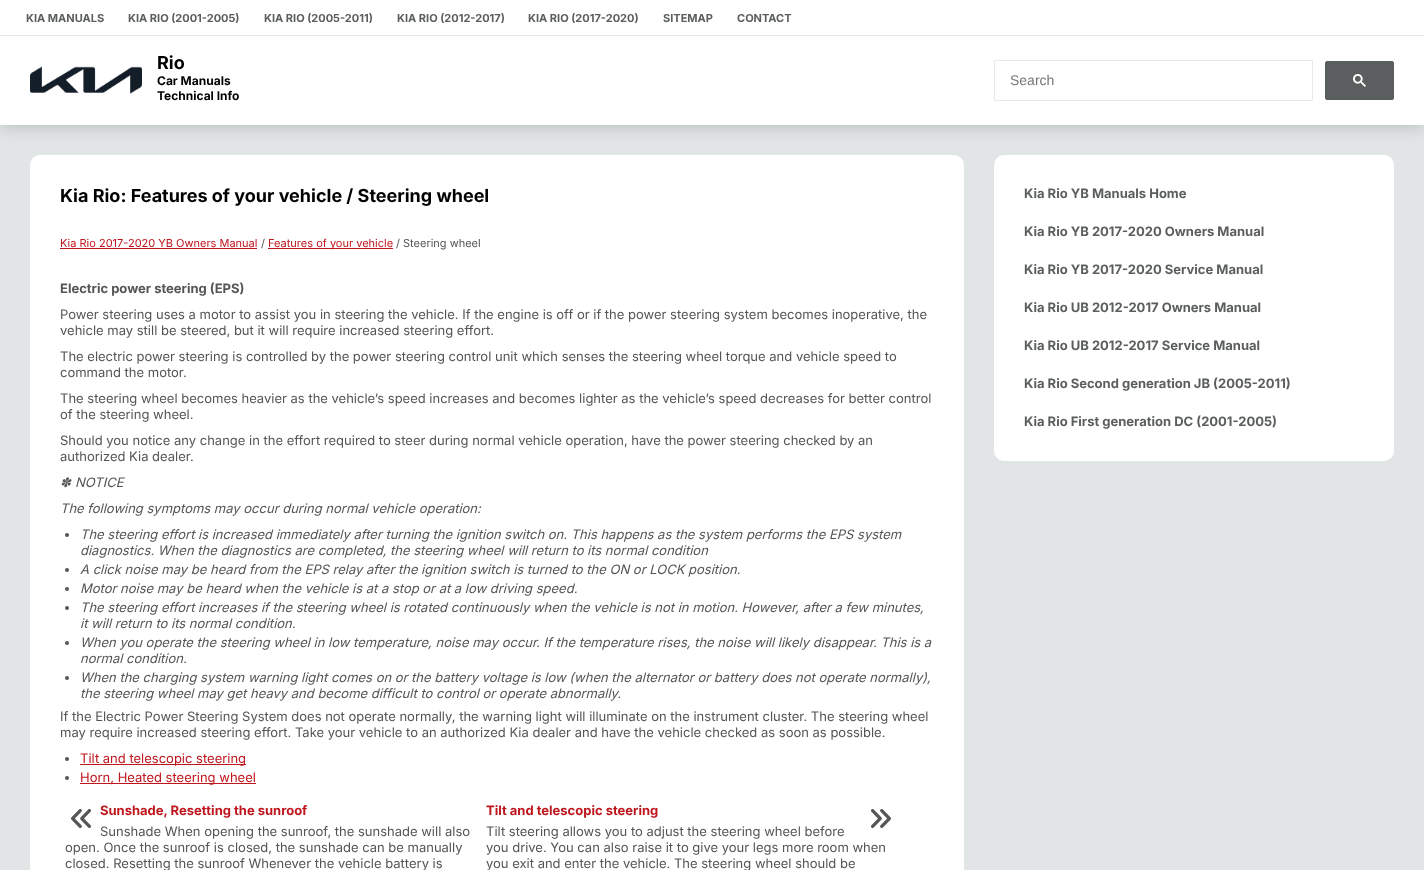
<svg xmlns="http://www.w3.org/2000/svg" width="1424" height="870">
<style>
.a{font:bold 11px Inter;fill:#5b5e5e}
.b{font:bold 18px Inter;fill:#000}
.c{font:bold 12px Inter;fill:#000}
.d{font:14px Liberation Sans;fill:#757575}
.e{font:11px Inter;fill:#bf151c}
.f{font:11px Inter;fill:#555}
.g{font:bold 13px Inter;fill:#555}
.h{font:13px Inter;fill:#555}
.i{font:italic 13px DejaVu Sans;fill:#555}
.j{font:italic 13px Inter;fill:#555}
.k{font:13px Inter;fill:#bf151c}
.l{font:bold 13px Inter;fill:#bf151c}
.m{font:bold 13px Inter;fill:#5b5e5e}
</style>
<rect width="100%" height="100%" fill="#e1e5e6"/>
<path fill="#00000026" filter="blur(7.5px)" d="M0 3h1424v125H0z"/>
<path fill="#fff" d="M0 0h1424v125H0z"/>
<path fill="#e8e8e8" d="M0 35h1424v1H0z"/>
<image href="1.png" x="30" y="66" width="112" height="28"/>
<path fill="none" stroke="#e8e8e8" d="M994.5 60.5h318v40H994.5z"/>
<rect fill="#5b5e5e" stroke="#5b5e5e" x="1325.5" y="61.5" width="68" height="38" rx="1.5"/>
<image href="2.png" x="1353" y="74" width="13" height="13"/>
<rect fill="#fff" x="30" y="155" width="934" height="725" rx="10"/>
<path fill="#bf151c" d="M60 248h197v1H60z"/>
<path fill="#bf151c" d="M268 248h125v1H268z"/>
<circle fill="#555" cx="67" cy="535" r="2"/>
<circle fill="#555" cx="67" cy="570" r="2"/>
<circle fill="#555" cx="67" cy="589" r="2"/>
<circle fill="#555" cx="67" cy="608" r="2"/>
<circle fill="#555" cx="67" cy="643" r="2"/>
<circle fill="#555" cx="67" cy="678" r="2"/>
<circle fill="#555" cx="67" cy="759" r="2"/>
<path fill="#bf151c" d="M80 764h166v1H80z"/>
<circle fill="#555" cx="67" cy="778" r="2"/>
<path fill="#bf151c" d="M80 783h176v1H80z"/>
<image href="3.png" x="71" y="809" width="20" height="19"/>
<image href="4.png" x="871" y="809" width="20" height="19"/>
<rect fill="#fff" x="994" y="155" width="400" height="306" rx="10"/>
<text class="a" x="26" y="22">KIA MANUALS</text>
<text class="a" x="128" y="22">KIA RIO (2001-2005)</text>
<text class="a" x="264" y="22">KIA RIO (2005-2011)</text>
<text class="a" x="397" y="22">KIA RIO (2012-2017)</text>
<text class="a" x="528" y="22">KIA RIO (2017-2020)</text>
<text class="a" x="663" y="22">SITEMAP</text>
<text class="a" x="737" y="22">CONTACT</text>
<text class="b" x="157" y="69">Rio</text>
<text class="c" x="157" y="85">Car Manuals</text>
<text class="c" x="157" y="100">Technical Info</text>
<text class="d" x="1010" y="85">Search</text>
<text class="b" x="60" y="202">Kia Rio: Features of your vehicle / Steering wheel</text>
<text class="e" x="60" y="247">Kia Rio 2017-2020 YB Owners Manual</text>
<text class="f" x="261" y="247">/</text>
<text class="e" x="268" y="247">Features of your vehicle</text>
<text class="f" x="396" y="247">/ Steering wheel</text>
<text class="g" x="60" y="293">Electric power steering (EPS)</text>
<text class="h" x="60" y="319">Power steering uses a motor to assist you in steering the vehicle. If the engine is off or if the power steering system becomes inoperative, the</text>
<text class="h" x="60" y="335">vehicle may still be steered, but it will require increased steering effort.</text>
<text class="h" x="60" y="361">The electric power steering is controlled by the power steering control unit which senses the steering wheel torque and vehicle speed to</text>
<text class="h" x="60" y="377">command the motor.</text>
<text class="h" x="60" y="403">The steering wheel becomes heavier as the vehicle’s speed increases and becomes lighter as the vehicle’s speed decreases for better control</text>
<text class="h" x="60" y="419">of the steering wheel.</text>
<text class="h" x="60" y="445">Should you notice any change in the effort required to steer during normal vehicle operation, have the power steering checked by an</text>
<text class="h" x="60" y="461">authorized Kia dealer.</text>
<text class="i" x="60" y="487">✽</text>
<text class="j" x="75" y="487">NOTICE</text>
<text class="j" x="60" y="513">The following symptoms may occur during normal vehicle operation:</text>
<text class="j" x="80" y="539">The steering effort is increased immediately after turning the ignition switch on. This happens as the system performs the EPS system</text>
<text class="j" x="80" y="555">diagnostics. When the diagnostics are completed, the steering wheel will return to its normal condition</text>
<text class="j" x="80" y="574">A click noise may be heard from the EPS relay after the ignition switch is turned to the ON or LOCK position.</text>
<text class="j" x="80" y="593">Motor noise may be heard when the vehicle is at a stop or at a low driving speed.</text>
<text class="j" x="80" y="612">The steering effort increases if the steering wheel is rotated continuously when the vehicle is not in motion. However, after a few minutes,</text>
<text class="j" x="80" y="628">it will return to its normal condition.</text>
<text class="j" x="80" y="647">When you operate the steering wheel in low temperature, noise may occur. If the temperature rises, the noise will likely disappear. This is a</text>
<text class="j" x="80" y="663">normal condition.</text>
<text class="j" x="80" y="682">When the charging system warning light comes on or the battery voltage is low (when the alternator or battery does not operate normally),</text>
<text class="j" x="80" y="698">the steering wheel may get heavy and become difficult to control or operate abnormally.</text>
<text class="h" x="60" y="721">If the Electric Power Steering System does not operate normally, the warning light will illuminate on the instrument cluster. The steering wheel</text>
<text class="h" x="60" y="737">may require increased steering effort. Take your vehicle to an authorized Kia dealer and have the vehicle checked as soon as possible.</text>
<text class="k" x="80" y="763">Tilt and telescopic steering</text>
<text class="k" x="80" y="782">Horn, Heated steering wheel</text>
<text class="l" x="100" y="815">Sunshade, Resetting the sunroof</text>
<text class="h" x="100" y="836">Sunshade When opening the sunroof, the sunshade will also</text>
<text class="h" x="65" y="852">open. Once the sunroof is closed, the sunshade can be manually</text>
<text class="h" x="65" y="868">closed. Resetting the sunroof Whenever the vehicle battery is</text>
<text class="l" x="486" y="815">Tilt and telescopic steering</text>
<text class="h" x="486" y="836">Tilt steering allows you to adjust the steering wheel before</text>
<text class="h" x="486" y="852">you drive. You can also raise it to give your legs more room when</text>
<text class="h" x="486" y="868">you exit and enter the vehicle. The steering wheel should be</text>
<text class="m" x="1024" y="198">Kia Rio YB Manuals Home</text>
<text class="m" x="1024" y="236">Kia Rio YB 2017-2020 Owners Manual</text>
<text class="m" x="1024" y="274">Kia Rio YB 2017-2020 Service Manual</text>
<text class="m" x="1024" y="312">Kia Rio UB 2012-2017 Owners Manual</text>
<text class="m" x="1024" y="350">Kia Rio UB 2012-2017 Service Manual</text>
<text class="m" x="1024" y="388">Kia Rio Second generation JB (2005-2011)</text>
<text class="m" x="1024" y="426">Kia Rio First generation DC (2001-2005)</text>
</svg>
